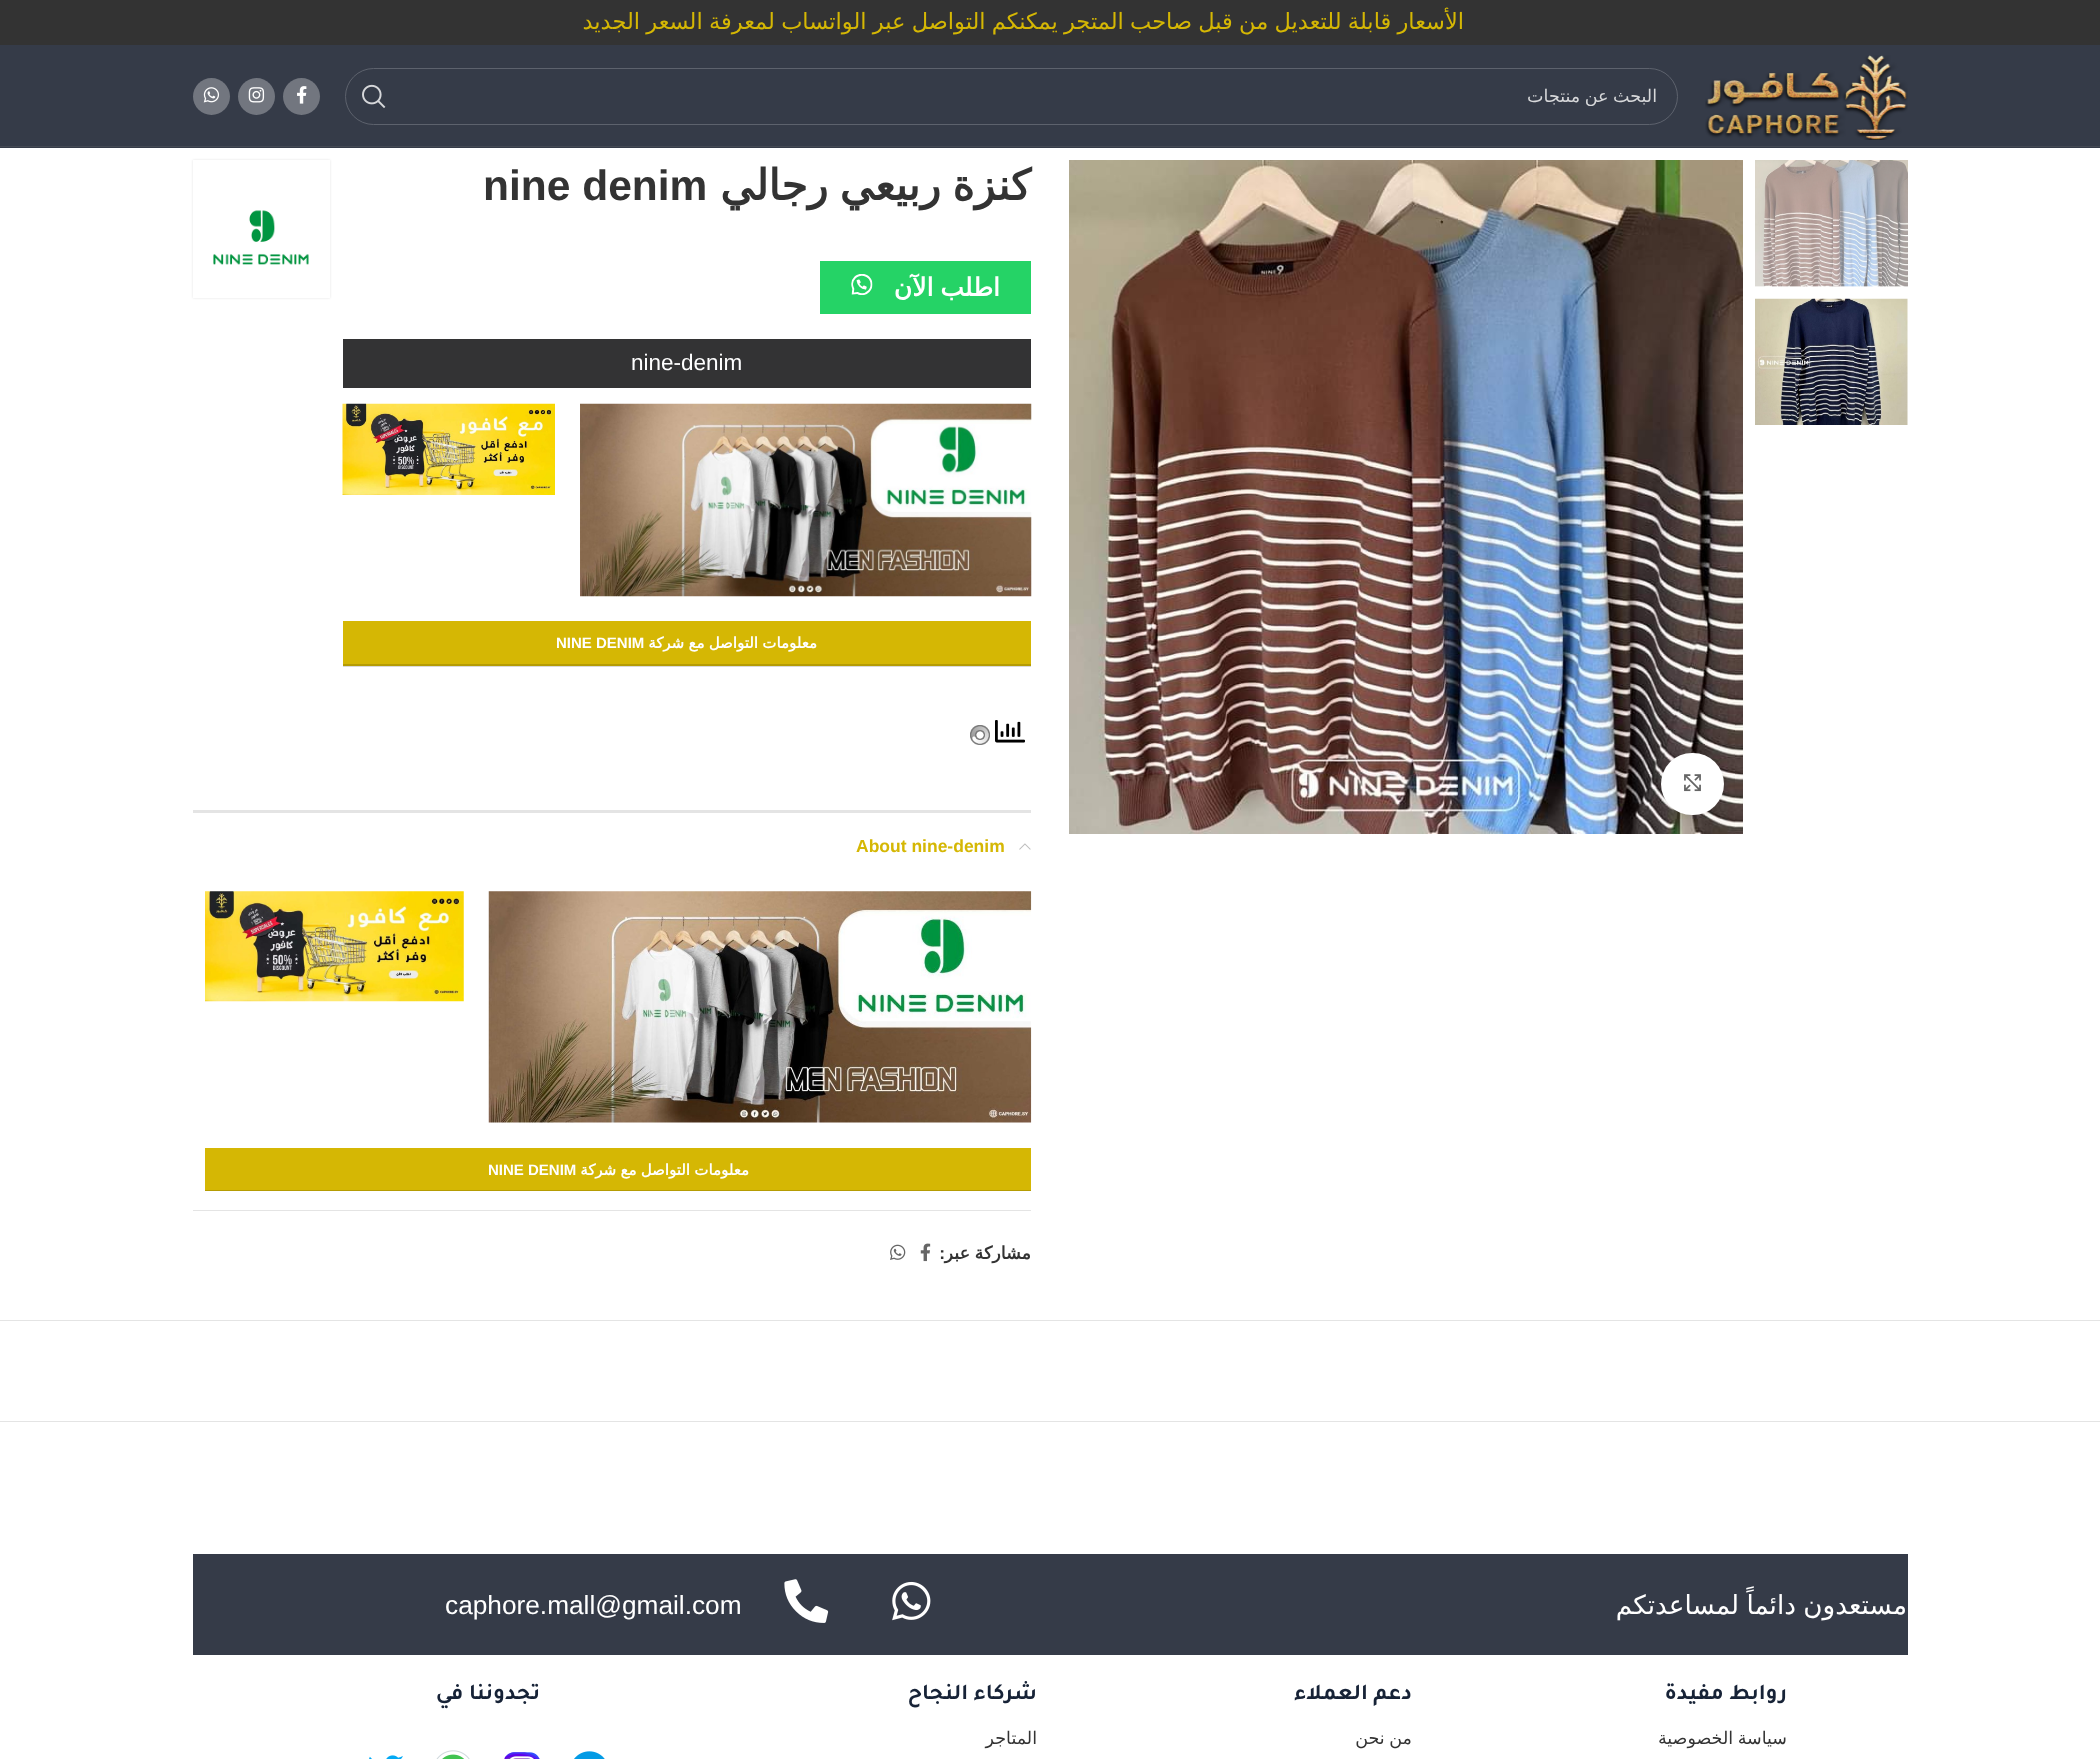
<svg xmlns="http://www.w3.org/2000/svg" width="2100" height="1759">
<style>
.a{font:22.5px DejaVu Sans;direction:rtl;fill:#d5b704}
.b{font:17.5px DejaVu Sans;direction:rtl;fill:#d7d8da}
.c{font:bold 42.5px DejaVu Sans;direction:rtl;fill:#333}
.d{font:bold 42.5px Liberation Sans;fill:#333}
.e{font:bold 25px DejaVu Sans;direction:rtl;fill:#fff}
.f{font:22.5px Liberation Sans;fill:#fff}
.g{font:bold 15px DejaVu Sans;direction:rtl;fill:#fff}
.h{font:bold 15px Liberation Sans;fill:#fff}
.i{font:bold 17.5px Liberation Sans;fill:#d5b704}
.j{font:bold 17.5px DejaVu Sans;direction:rtl;fill:#333}
.k{font:bold 17.5px Liberation Sans;direction:rtl;fill:#333}
.l{font:26.25px DejaVu Sans;direction:rtl;fill:#fff}
.m{font:26.25px Liberation Sans;fill:#fff}
.n{font:bold 22.5px Tajawal;direction:rtl;fill:#172337}
.o{font:17.5px DejaVu Sans;direction:rtl;fill:#333}
</style>
<defs>
<clipPath id="clip1"><path d="M441 86h1217v20H441z"/></clipPath>
</defs>
<rect width="100%" height="100%" fill="#fff"/>
<path fill="#d9d9d9" d="M343 666h688v1H343z"/>
<path fill="#333" d="M0 0h2100v45H0z"/>
<path fill="#353b48" d="M0 45h2100v103H0z"/>
<path fill="#444953" d="M0 146h2100v1H0z"/>
<image href="1.png" x="1705" y="55" width="203" height="85"/>
<rect fill="none" stroke="#5d626d" x="345.5" y="68.5" width="1332" height="56" rx="28"/>
<image href="2.png" x="362" y="84" width="24" height="24"/>
<circle fill="#72767f" cx="301.5" cy="96.5" r="18.5"/>
<image href="3.png" x="297" y="86" width="10" height="18"/>
<circle fill="#72767f" cx="256.5" cy="96.5" r="18.5"/>
<image href="4.png" x="248" y="87" width="17" height="16"/>
<circle fill="#72767f" cx="211.5" cy="96.5" r="18.5"/>
<image href="5.png" x="203" y="87" width="17" height="16"/>
<image href="6.png" x="1755" y="160" width="153" height="127"/>
<image href="7.png" x="1755" y="298" width="153" height="127"/>
<image href="8.png" x="1069" y="160" width="674" height="674"/>
<rect fill="#00000014" filter="blur(3px)" x="1661" y="753" width="63" height="62" rx="31"/>
<rect fill="#fff" x="1661" y="753" width="63" height="62" rx="31"/>
<image href="9.png" x="1684" y="774" width="17" height="18"/>
<path fill="#0000001f" filter="blur(1px)" d="M193 160h137v138H193z"/>
<path fill="#fff" d="M193 160h137v138H193z"/>
<image href="10.png" x="213" y="210" width="96" height="55"/>
<path fill="#25d366" d="M820 261h211v53H820z"/>
<image href="11.png" x="851" y="274" width="22" height="21"/>
<path fill="#333334" d="M343 339h688v49H343z"/>
<image href="12.png" x="580" y="403" width="452" height="194"/>
<image href="13.png" x="342" y="403" width="213" height="92"/>
<path fill="#d5b704" d="M343 621h688v43H343z"/>
<path fill="#b59c03" d="M343 664h688v2H343z"/>
<image href="14.png" x="995" y="720" width="30" height="23"/>
<image href="15.png" x="970" y="725" width="20" height="20"/>
<path fill="#e4e4e4" d="M193 810h838v3H193z"/>
<path fill="#e4e4e4" d="M193 1210h838v1H193z"/>
<image href="16.png" x="1019" y="843" width="12" height="7"/>
<image href="17.png" x="488" y="891" width="544" height="232"/>
<image href="18.png" x="205" y="891" width="259" height="111"/>
<path fill="#d5b704" d="M205 1148h826v42H205z"/>
<path fill="#b59c03" d="M205 1190h826v1H205z"/>
<image href="19.png" x="920" y="1243" width="11" height="19"/>
<image href="20.png" x="890" y="1244" width="16" height="16"/>
<path fill="#e4e4e4" d="M0 1320h2100v1H0z"/>
<path fill="#e4e4e4" d="M0 1421h2100v1H0z"/>
<path fill="#353b48" d="M193 1554h1715v101H193z"/>
<image href="21.png" x="892" y="1581" width="39" height="40"/>
<image href="22.png" x="784" y="1579" width="45" height="44"/>
<image href="23.png" x="574" y="1751" width="31" height="8"/>
<image href="24.png" x="504" y="1752" width="36" height="7"/>
<image href="25.png" x="436" y="1750" width="34" height="9"/>
<image href="26.png" x="369" y="1755" width="34" height="4"/>
<text class="a" x="1464" y="29" word-spacing="-0.9">الأسعار قابلة للتعديل من قبل صاحب المتجر يمكنكم التواصل عبر الواتساب لمعرفة السعر الجديد</text>
<g clip-path="url(#clip1)">
<text class="b" x="1657" y="102" word-spacing="-1">البحث عن منتجات</text>
</g>
<text class="c" x="1031" y="200" word-spacing="-2">كنزة ربيعي رجالي</text>
<text class="d" x="483" y="200">nine denim</text>
<text class="e" x="1000" y="296" word-spacing="-1">اطلب الآن</text>
<text class="f" x="631" y="370">nine-denim</text>
<text class="g" x="817" y="648" word-spacing="-0.5">معلومات التواصل مع شركة</text>
<text class="h" x="556" y="648">NINE DENIM</text>
<text class="i" x="856" y="852">About nine-denim</text>
<text class="g" x="749" y="1175" word-spacing="-0.5">معلومات التواصل مع شركة</text>
<text class="h" x="488" y="1175">NINE DENIM</text>
<text class="j" x="1031" y="1259" word-spacing="-1">مشاركة عبر</text>
<text class="k" x="945" y="1259">:</text>
<text class="l" x="1907" y="1614" word-spacing="-1">مستعدون دائماً لمساعدتكم</text>
<text class="m" x="445" y="1614">caphore.mall@gmail.com</text>
<text class="n" x="1787" y="1699">روابط مفيدة</text>
<text class="o" x="1787" y="1744" word-spacing="-1">سياسة الخصوصية</text>
<text class="n" x="1412" y="1699">دعم العملاء</text>
<text class="o" x="1412" y="1744" word-spacing="-1">من نحن</text>
<text class="n" x="1037" y="1699">شركاء النجاح</text>
<text class="o" x="1037" y="1744">المتاجر</text>
<text class="n" x="540" y="1699">تجدوننا في</text>
</svg>
